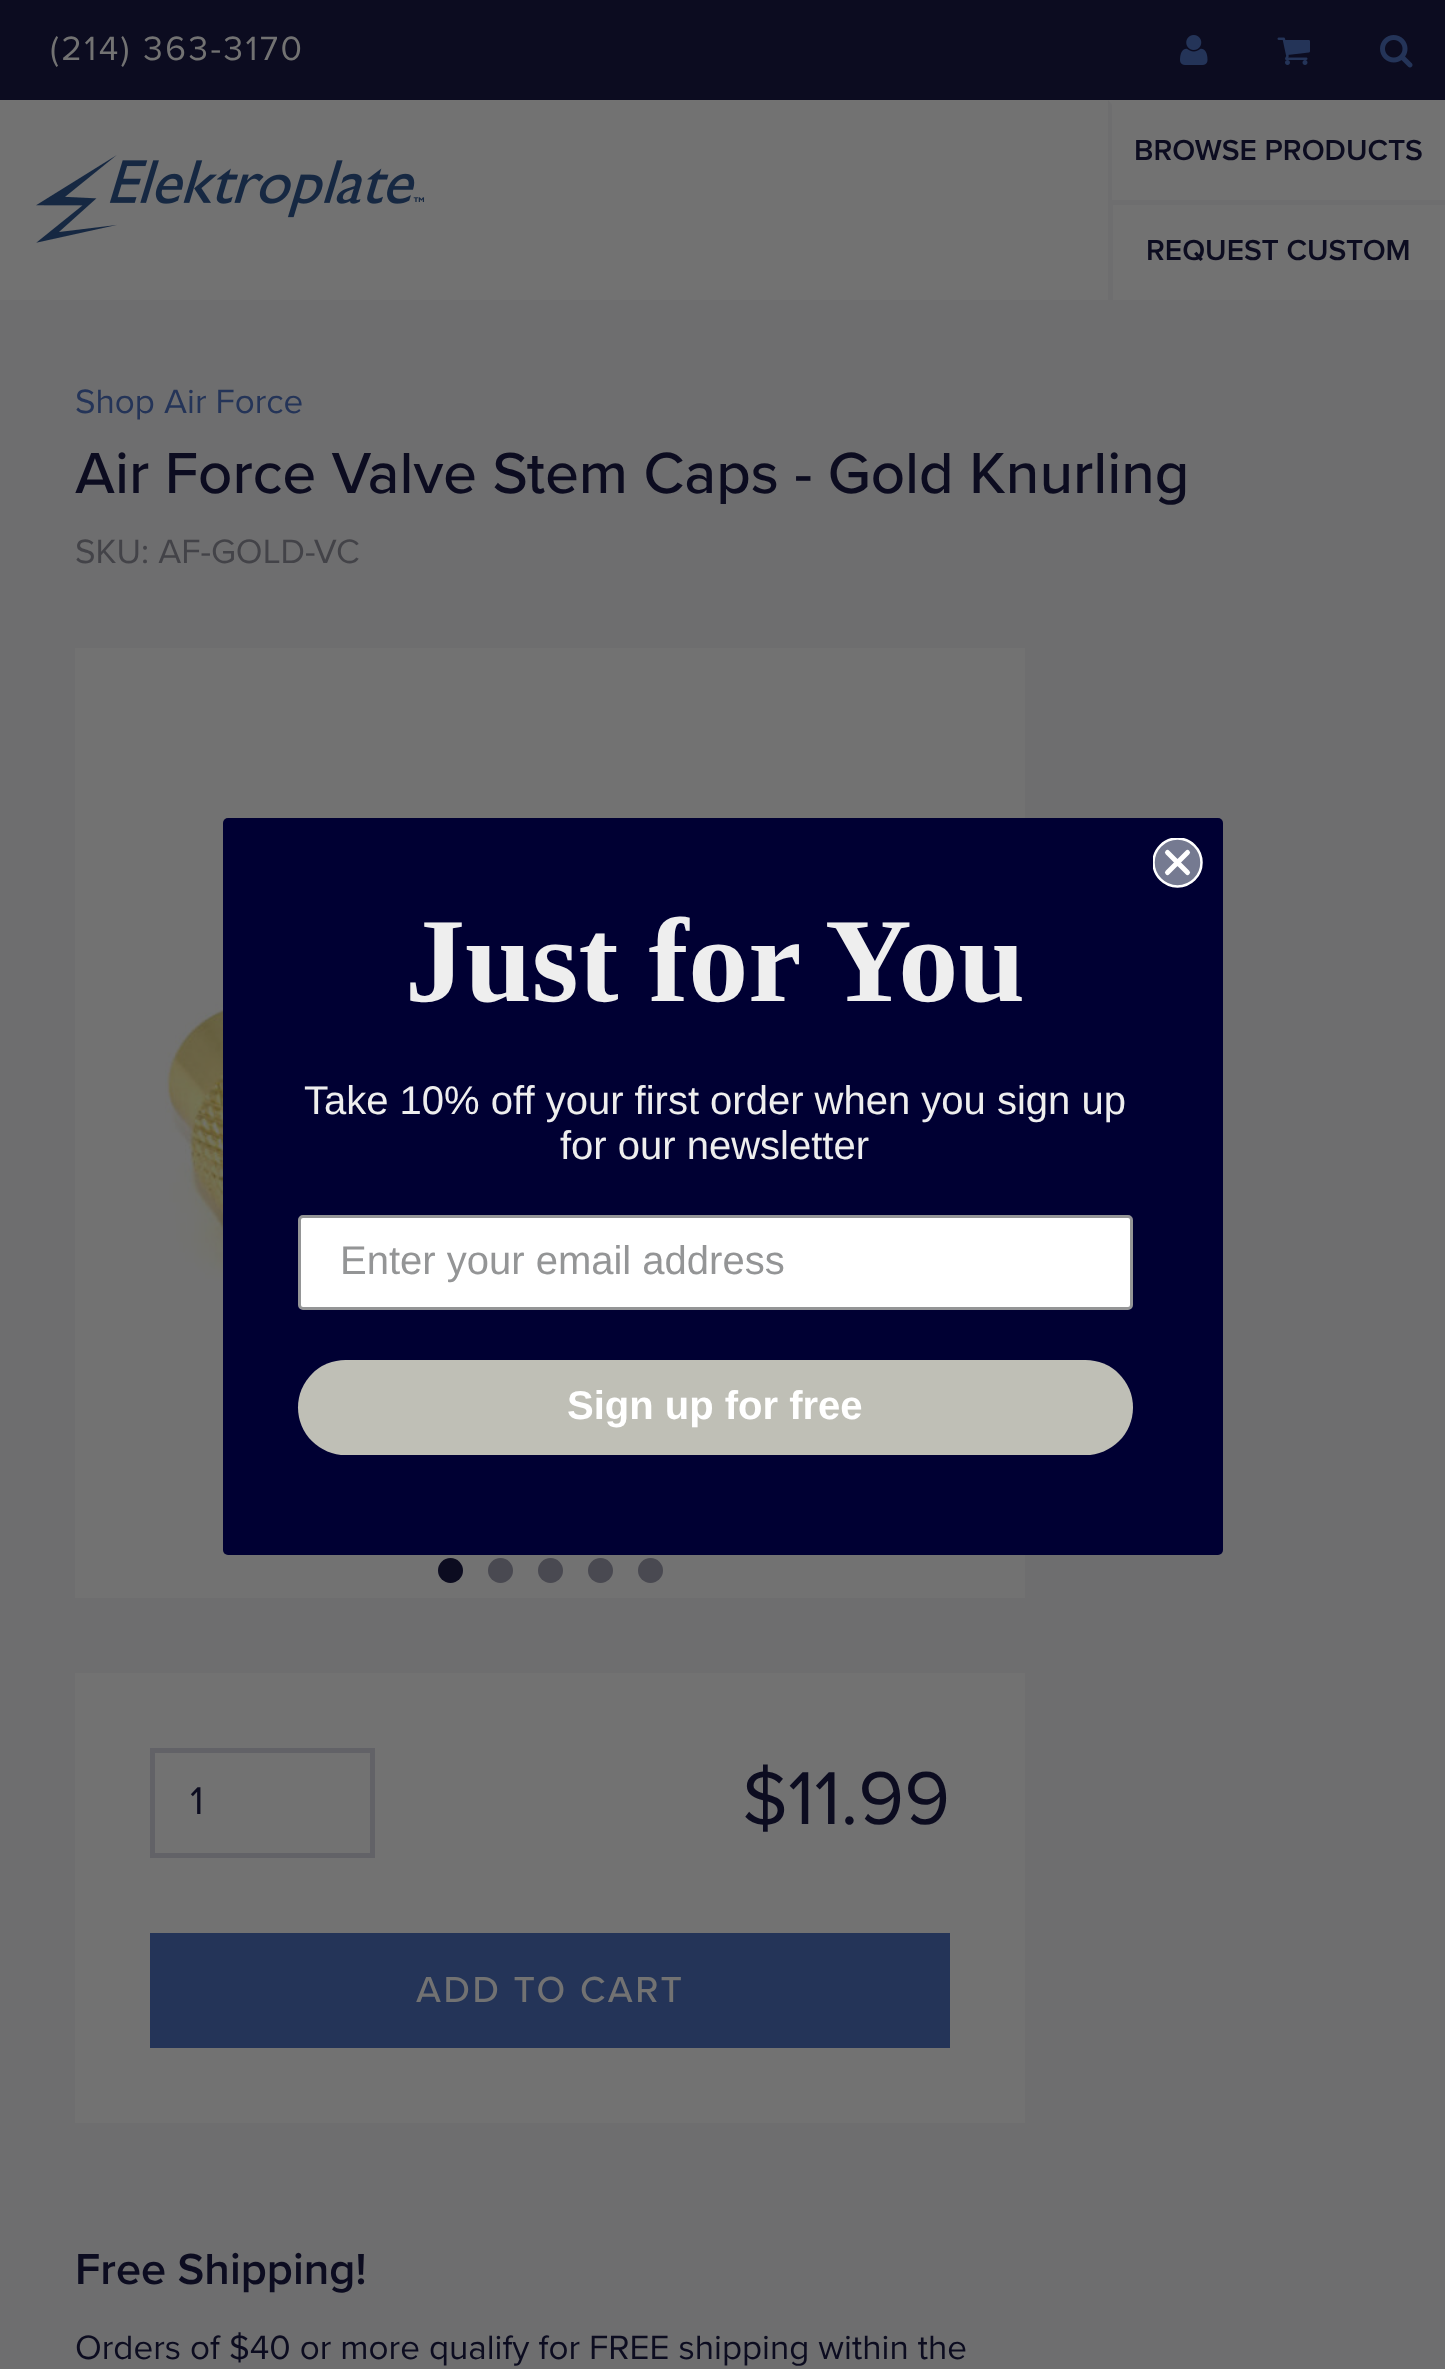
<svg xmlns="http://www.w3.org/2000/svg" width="1445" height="2369">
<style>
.a{font:35px Proxima Nova;letter-spacing:2.5px;fill:#727272}
.b{font:600 30px Proxima Nova;fill:#0c0c20}
.c{font:35px Proxima Nova;fill:#243458}
.d{font:500 60px Proxima Nova;fill:#0c0c20}
.e{font:35px Proxima Nova;fill:#434348}
.f{font:40px Proxima Nova;fill:#0c0c20}
.g{font:77.5px Proxima Nova;fill:#0c0c20}
.h{font:500 37.5px Proxima Nova;letter-spacing:2.5px;fill:#727272}
.i{font:600 45px Proxima Nova;fill:#0c0c20}
.j{font:35px Proxima Nova;fill:#0c0c20}
.k{font:bold 120px Liberation Serif;fill:#eee}
.l{font:40px Liberation Sans;fill:#eee}
.m{font:40px Liberation Sans;fill:#949596}
.n{font:bold 40px Liberation Sans;fill:#fff}
</style>
<defs>
<clipPath id="clip1"><path d="M1153 838h50v50H1153z"/></clipPath>
</defs>
<rect width="100%" height="100%" fill="#6e6e6f"/>
<path fill="#0c0c20" d="M0 0h1445v100H0z"/>
<image href="1.png" x="1180" y="35" width="28" height="30"/>
<image href="2.png" x="1277" y="37" width="33" height="28"/>
<image href="3.png" x="1380" y="35" width="33" height="33"/>
<path fill="#727272" d="M0 100h1445v200H0z"/>
<image href="4.png" x="36" y="155" width="389" height="88"/>
<path fill="#6e6e6f" d="M1108 200v-100l4 5v95z"/>
<path fill="#6e6e6f" d="M1108 200h337v5H1108z"/>
<path fill="#6e6e6f" d="M1108 200h5v100H1108z"/>
<path fill="#727272" d="M75 648h950v950H75z"/>
<image href="5.png" x="165" y="882" width="58" height="486"/>
<circle fill="#0c0c20" cx="450.5" cy="1570.5" r="12.5"/>
<circle fill="#494951" cx="500.5" cy="1570.5" r="12.5"/>
<circle fill="#494951" cx="550.5" cy="1570.5" r="12.5"/>
<circle fill="#494951" cx="600.5" cy="1570.5" r="12.5"/>
<circle fill="#494951" cx="650.5" cy="1570.5" r="12.5"/>
<path fill="#727272" d="M75 1673h950v450H75z"/>
<path fill="none" stroke="#626267" stroke-width="5" d="M152.5 1750.5h220v105H152.5z"/>
<path fill="#243458" d="M150 1933h800v115H150z"/>
<rect fill="#003" x="223" y="818" width="1000" height="737" rx="5"/>
<circle fill="#757a91" cx="1177.5" cy="862.5" r="24"/>
<g clip-path="url(#clip1)">
<circle fill="none" stroke="#fff" stroke-width="2.5" cx="1177.5" cy="862.5" r="24"/>
</g>
<path fill="none" stroke="#fff" stroke-width="5" stroke-linecap="round" stroke-linejoin="round" d="M1167.5 852.5l20 20m-20 0l20-20z"/>
<rect fill="#fff" stroke="#949596" stroke-width="3" x="299.5" y="1216.5" width="832" height="92" rx="3.5"/>
<rect fill="#bfbfb6" x="298" y="1360" width="835" height="95" rx="47.5"/>
<text class="a" x="50" y="60">(214) 363-3170</text>
<text class="b" x="1134" y="160">BROWSE PRODUCTS</text>
<text class="b" x="1146" y="260">REQUEST CUSTOM</text>
<text class="c" x="75" y="413">Shop Air Force</text>
<text class="d" x="75" y="493">Air Force Valve Stem Caps - Gold Knurling</text>
<text class="e" x="75" y="563">SKU: AF-GOLD-VC</text>
<text class="f" x="190" y="1814">1</text>
<text class="g" x="742" y="1824">$11.99</text>
<text class="h" x="416" y="2002">ADD TO CART</text>
<text class="i" x="75" y="2284">Free Shipping!</text>
<text class="j" x="75" y="2359">Orders of $40 or more qualify for FREE shipping within the</text>
<text class="k" x="405" y="1001">Just for You</text>
<text class="l" x="304" y="1114">Take 10% off your first order when you sign up</text>
<text class="l" x="560" y="1159">for our newsletter</text>
<text class="m" x="340" y="1274">Enter your email address</text>
<text class="n" x="567" y="1419">Sign up for free</text>
</svg>
